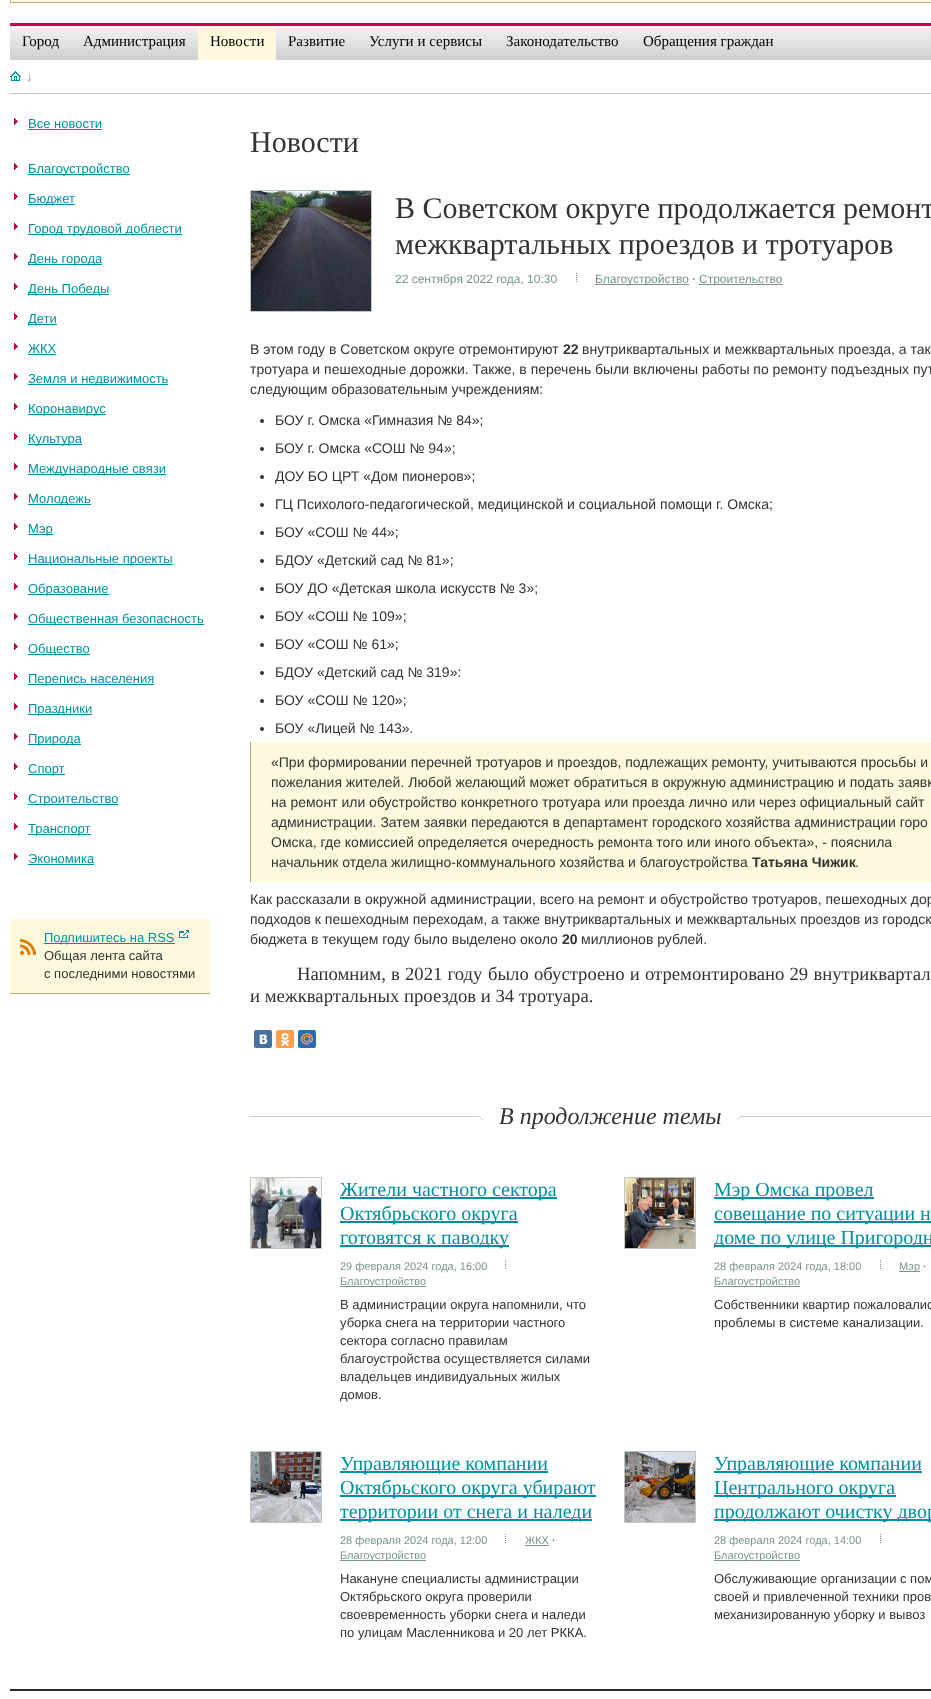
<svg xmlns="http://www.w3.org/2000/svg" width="931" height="1699">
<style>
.a{font:15px Liberation Serif;fill:#000}
.b{font:13px Liberation Sans;fill:#79948c}
.c{font:13px Liberation Sans;fill:#008fa0}
.d{font:13px Liberation Sans;fill:#333}
.e{font:30px Liberation Serif;fill:#333}
.f{font:12px Liberation Sans;fill:#79948c}
.g{font:bold 12px Liberation Sans;fill:#79948c}
.h{font:14px Liberation Sans;fill:#333}
.i{font:bold 14px Liberation Sans;fill:#333}
.j{font:18.7px Liberation Serif;fill:#333}
.k{font:italic 24px Liberation Serif;fill:#333}
.l{font:20px Liberation Serif;fill:#008fa0}
.m{font:11px Liberation Sans;fill:#79948c}
.n{font:bold 11px Liberation Sans;fill:#79948c}
</style>
<defs>
<linearGradient id="g1" gradientUnits="userSpaceOnUse" x1="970" y1="26" x2="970" y2="60"><stop offset="0" stop-color="#f3f3f3"/><stop offset="1" stop-color="#cfcfcf"/></linearGradient>
</defs>
<rect width="100%" height="100%" fill="#fff"/>
<path fill="#fdf9dd" stroke="#bea673" d="M10.5 -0.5h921v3H10.5z"/>
<path fill="url(#g1)" d="M10 26h921v34H10z"/>
<path fill="#c5064e" d="M10 23h921v3H10z"/>
<path fill="#fdf9dd" d="M198 26h78v34H198z"/>
<path fill="#2d2b27" d="M10 1689h921v2H10z"/>
<path fill="#c0c7c4" d="M10 93h921v1H10z"/>
<image href="1.png" x="10" y="71" width="11" height="10"/>
<image href="2.png" x="14" y="118" width="4" height="7"/>
<path fill="#008fa0" d="M28 129h74v1H28z"/>
<image href="2.png" x="14" y="163" width="4" height="7"/>
<path fill="#008fa0" d="M28 174h102v1H28z"/>
<image href="2.png" x="14" y="193" width="4" height="7"/>
<path fill="#008fa0" d="M28 204h47v1H28z"/>
<image href="2.png" x="14" y="223" width="4" height="7"/>
<path fill="#008fa0" d="M28 234h154v1H28z"/>
<image href="2.png" x="14" y="253" width="4" height="7"/>
<path fill="#008fa0" d="M28 264h74v1H28z"/>
<image href="2.png" x="14" y="283" width="4" height="7"/>
<path fill="#008fa0" d="M28 294h81v1H28z"/>
<image href="2.png" x="14" y="313" width="4" height="7"/>
<path fill="#008fa0" d="M28 324h29v1H28z"/>
<image href="2.png" x="14" y="343" width="4" height="7"/>
<path fill="#008fa0" d="M28 354h28v1H28z"/>
<image href="2.png" x="14" y="373" width="4" height="7"/>
<path fill="#008fa0" d="M28 384h140v1H28z"/>
<image href="2.png" x="14" y="403" width="4" height="7"/>
<path fill="#008fa0" d="M28 414h78v1H28z"/>
<image href="2.png" x="14" y="433" width="4" height="7"/>
<path fill="#008fa0" d="M28 444h54v1H28z"/>
<image href="2.png" x="14" y="463" width="4" height="7"/>
<path fill="#008fa0" d="M28 474h138v1H28z"/>
<image href="2.png" x="14" y="493" width="4" height="7"/>
<path fill="#008fa0" d="M28 504h63v1H28z"/>
<image href="2.png" x="14" y="523" width="4" height="7"/>
<path fill="#008fa0" d="M28 534h25v1H28z"/>
<image href="2.png" x="14" y="553" width="4" height="7"/>
<path fill="#008fa0" d="M28 564h145v1H28z"/>
<image href="2.png" x="14" y="583" width="4" height="7"/>
<path fill="#008fa0" d="M28 594h81v1H28z"/>
<image href="2.png" x="14" y="613" width="4" height="7"/>
<path fill="#008fa0" d="M28 624h176v1H28z"/>
<image href="2.png" x="14" y="643" width="4" height="7"/>
<path fill="#008fa0" d="M28 654h62v1H28z"/>
<image href="2.png" x="14" y="673" width="4" height="7"/>
<path fill="#008fa0" d="M28 684h126v1H28z"/>
<image href="2.png" x="14" y="703" width="4" height="7"/>
<path fill="#008fa0" d="M28 714h64v1H28z"/>
<image href="2.png" x="14" y="733" width="4" height="7"/>
<path fill="#008fa0" d="M28 744h53v1H28z"/>
<image href="2.png" x="14" y="763" width="4" height="7"/>
<path fill="#008fa0" d="M28 774h37v1H28z"/>
<image href="2.png" x="14" y="793" width="4" height="7"/>
<path fill="#008fa0" d="M28 804h90v1H28z"/>
<image href="2.png" x="14" y="823" width="4" height="7"/>
<path fill="#008fa0" d="M28 834h63v1H28z"/>
<image href="2.png" x="14" y="853" width="4" height="7"/>
<path fill="#008fa0" d="M28 864h66v1H28z"/>
<path fill="#fdf9dd" d="M10 919h200v74H10z"/>
<path fill="#bea673" d="M10 993h200v1H10z"/>
<image href="3.png" x="20" y="939" width="16" height="16"/>
<path fill="#008fa0" d="M44 943h131v1H44z"/>
<image href="4.png" x="179" y="930" width="10" height="8"/>
<path fill="none" stroke="#c0c7c4" d="M250.5 190.5h121v121H250.5z"/>
<image href="5.png" x="251" y="191" width="120" height="120"/>
<path fill="none" stroke="#79948c" stroke-dasharray="1 1" d="M576.5 273v10"/>
<path fill="#79948c" d="M595 284h94v1H595z"/>
<path fill="#79948c" d="M699 284h84v1H699z"/>
<circle fill="#333" cx="262" cy="421" r="2"/>
<circle fill="#333" cx="262" cy="449" r="2"/>
<circle fill="#333" cx="262" cy="477" r="2"/>
<circle fill="#333" cx="262" cy="505" r="2"/>
<circle fill="#333" cx="262" cy="533" r="2"/>
<circle fill="#333" cx="262" cy="561" r="2"/>
<circle fill="#333" cx="262" cy="589" r="2"/>
<circle fill="#333" cx="262" cy="617" r="2"/>
<circle fill="#333" cx="262" cy="645" r="2"/>
<circle fill="#333" cx="262" cy="673" r="2"/>
<circle fill="#333" cx="262" cy="701" r="2"/>
<circle fill="#333" cx="262" cy="729" r="2"/>
<path fill="#fdf9dd" d="M251 742h680v140H251z"/>
<path fill="#bea673" d="M250 742h1v140H250z"/>
<rect fill="#48729e" x="254" y="1030" width="18" height="18" rx="2"/>
<image href="6.png" x="259" y="1034" width="9" height="10"/>
<rect fill="#ff9f4d" x="276" y="1030" width="18" height="18" rx="2"/>
<image href="7.png" x="281" y="1033" width="8" height="13"/>
<rect fill="#226eb7" x="298" y="1030" width="18" height="18" rx="2"/>
<image href="8.png" x="301" y="1033" width="12" height="12"/>
<path fill="#ccc" d="M250 1116h681v1H250z"/>
<path fill="#fff" d="M479 1116h262v1H479z"/>
<image href="9.png" x="479" y="1116" width="4" height="4"/>
<image href="10.png" x="737" y="1116" width="4" height="4"/>
<path fill="none" stroke="#c0c7c4" d="M250.5 1177.5h71v71H250.5z"/>
<image href="11.png" x="251" y="1178" width="70" height="70"/>
<path fill="#008fa0" d="M340 1197h217v2H340z"/>
<path fill="#008fa0" d="M340 1221h178v2H340z"/>
<path fill="#008fa0" d="M340 1245h169v2H340z"/>
<path fill="none" stroke="#79948c" stroke-dasharray="1 1" d="M505.5 1260v10"/>
<path fill="#79948c" d="M340 1286h86v1H340z"/>
<path fill="none" stroke="#c0c7c4" d="M624.5 1177.5h71v71H624.5z"/>
<image href="12.png" x="625" y="1178" width="70" height="70"/>
<path fill="#008fa0" d="M714 1197h160v2H714z"/>
<path fill="#008fa0" d="M714 1221h217v2H714z"/>
<path fill="#008fa0" d="M714 1245h217v2H714z"/>
<path fill="none" stroke="#79948c" stroke-dasharray="1 1" d="M880.5 1260v10"/>
<path fill="#79948c" d="M899 1271h21v1H899z"/>
<path fill="#79948c" d="M714 1286h86v1H714z"/>
<path fill="none" stroke="#c0c7c4" d="M250.5 1451.5h71v71H250.5z"/>
<image href="13.png" x="251" y="1452" width="70" height="70"/>
<path fill="#008fa0" d="M340 1471h208v2H340z"/>
<path fill="#008fa0" d="M340 1495h256v2H340z"/>
<path fill="#008fa0" d="M340 1519h252v2H340z"/>
<path fill="none" stroke="#79948c" stroke-dasharray="1 1" d="M505.5 1534v10"/>
<path fill="#79948c" d="M525 1545h24v1H525z"/>
<path fill="#79948c" d="M340 1560h86v1H340z"/>
<path fill="none" stroke="#c0c7c4" d="M624.5 1451.5h71v71H624.5z"/>
<image href="14.png" x="625" y="1452" width="70" height="70"/>
<path fill="#008fa0" d="M714 1471h208v2H714z"/>
<path fill="#008fa0" d="M714 1495h182v2H714z"/>
<path fill="#008fa0" d="M714 1519h217v2H714z"/>
<path fill="none" stroke="#79948c" stroke-dasharray="1 1" d="M880.5 1534v10"/>
<path fill="#79948c" d="M714 1560h86v1H714z"/>
<text class="a" x="22" y="46">Город</text>
<text class="a" x="83" y="46">Администрация</text>
<text class="a" x="210" y="46">Новости</text>
<text class="a" x="288" y="46">Развитие</text>
<text class="a" x="369" y="46">Услуги и сервисы</text>
<text class="a" x="506" y="46">Законодательство</text>
<text class="a" x="643" y="46">Обращения граждан</text>
<text class="b" x="26" y="81">↓</text>
<text class="c" x="28" y="128">Все новости</text>
<text class="c" x="28" y="173">Благоустройство</text>
<text class="c" x="28" y="203">Бюджет</text>
<text class="c" x="28" y="233">Город трудовой доблести</text>
<text class="c" x="28" y="263">День города</text>
<text class="c" x="28" y="293">День Победы</text>
<text class="c" x="28" y="323">Дети</text>
<text class="c" x="28" y="353">ЖКХ</text>
<text class="c" x="28" y="383">Земля и недвижимость</text>
<text class="c" x="28" y="413">Коронавирус</text>
<text class="c" x="28" y="443">Культура</text>
<text class="c" x="28" y="473">Международные связи</text>
<text class="c" x="28" y="503">Молодежь</text>
<text class="c" x="28" y="533">Мэр</text>
<text class="c" x="28" y="563">Национальные проекты</text>
<text class="c" x="28" y="593">Образование</text>
<text class="c" x="28" y="623">Общественная безопасность</text>
<text class="c" x="28" y="653">Общество</text>
<text class="c" x="28" y="683">Перепись населения</text>
<text class="c" x="28" y="713">Праздники</text>
<text class="c" x="28" y="743">Природа</text>
<text class="c" x="28" y="773">Спорт</text>
<text class="c" x="28" y="803">Строительство</text>
<text class="c" x="28" y="833">Транспорт</text>
<text class="c" x="28" y="863">Экономика</text>
<text class="c" x="44" y="942">Подпишитесь на RSS</text>
<text class="d" x="44" y="960">Общая лента сайта</text>
<text class="d" x="44" y="978">с последними новостями</text>
<text class="e" x="250" y="152">Новости</text>
<text class="e" x="395" y="218">В Советском округе продолжается ремонт</text>
<text class="e" x="395" y="254">межквартальных проездов и тротуаров</text>
<text class="f" x="395" y="283">22 сентября 2022 года, 10:30</text>
<text class="f" x="595" y="283">Благоустройство</text>
<text class="g" x="692" y="283">·</text>
<text class="f" x="699" y="283">Строительство</text>
<text class="h" x="250" y="354">В этом году в Советском округе отремонтируют</text>
<text class="i" x="563" y="354">22</text>
<text class="h" x="582" y="354">внутриквартальных и межквартальных проезда, а так</text>
<text class="h" x="250" y="374">тротуара и пешеходные дорожки. Также, в перечень были включены работы по ремонту подъездных пут</text>
<text class="h" x="250" y="394">следующим образовательным учреждениям:</text>
<text class="h" x="275" y="425">БОУ г. Омска «Гимназия № 84»;</text>
<text class="h" x="275" y="453">БОУ г. Омска «СОШ № 94»;</text>
<text class="h" x="275" y="481">ДОУ БО ЦРТ «Дом пионеров»;</text>
<text class="h" x="275" y="509">ГЦ Психолого-педагогической, медицинской и социальной помощи г. Омска;</text>
<text class="h" x="275" y="537">БОУ «СОШ № 44»;</text>
<text class="h" x="275" y="565">БДОУ «Детский сад № 81»;</text>
<text class="h" x="275" y="593">БОУ ДО «Детская школа искусств № 3»;</text>
<text class="h" x="275" y="621">БОУ «СОШ № 109»;</text>
<text class="h" x="275" y="649">БОУ «СОШ № 61»;</text>
<text class="h" x="275" y="677">БДОУ «Детский сад № 319»:</text>
<text class="h" x="275" y="705">БОУ «СОШ № 120»;</text>
<text class="h" x="275" y="733">БОУ «Лицей № 143».</text>
<text class="h" x="271" y="767">«При формировании перечней тротуаров и проездов, подлежащих ремонту, учитываются просьбы и</text>
<text class="h" x="271" y="787">пожелания жителей. Любой желающий может обратиться в окружную администрацию и подать заявк</text>
<text class="h" x="271" y="807">на ремонт или обустройство конкретного тротуара или проезда лично или через официальный сайт</text>
<text class="h" x="271" y="827">администрации. Затем заявки передаются в департамент городского хозяйства администрации горо</text>
<text class="h" x="271" y="847">Омска, где комиссией определяется очередность ремонта того или иного объекта», - пояснила</text>
<text class="h" x="271" y="867">начальник отдела жилищно-коммунального хозяйства и благоустройства</text>
<text class="i" x="752" y="867">Татьяна Чижик</text>
<text class="h" x="855" y="867">.</text>
<text class="h" x="250" y="904">Как рассказали в окружной администрации, всего на ремонт и обустройство тротуаров, пешеходных дор</text>
<text class="h" x="250" y="924">подходов к пешеходным переходам, а также внутриквартальных и межквартальных проездов из городск</text>
<text class="h" x="250" y="944">бюджета в текущем году было выделено около</text>
<text class="i" x="562" y="944">20</text>
<text class="h" x="581" y="944">миллионов рублей.</text>
<text class="j" x="297" y="980" word-spacing="0.5">Напомним, в 2021 году</text>
<text class="j" x="488" y="980" word-spacing="0.5">было обустроено и отремонтировано 29 внутриквартал</text>
<text class="j" x="250" y="1002">и межквартальных проездов и 34 тротуара.</text>
<text class="k" x="499" y="1124">В продолжение темы</text>
<text class="l" x="340" y="1196">Жители частного сектора</text>
<text class="l" x="340" y="1220">Октябрьского округа</text>
<text class="l" x="340" y="1244">готовятся к паводку</text>
<text class="m" x="340" y="1270">29 февраля 2024 года, 16:00</text>
<text class="m" x="340" y="1285">Благоустройство</text>
<text class="d" x="340" y="1309">В администрации округа напомнили, что</text>
<text class="d" x="340" y="1327">уборка снега на территории частного</text>
<text class="d" x="340" y="1345">сектора согласно правилам</text>
<text class="d" x="340" y="1363">благоустройства осуществляется силами</text>
<text class="d" x="340" y="1381">владельцев индивидуальных жилых</text>
<text class="d" x="340" y="1399">домов.</text>
<text class="l" x="714" y="1196">Мэр Омска провел</text>
<text class="l" x="714" y="1220">совещание по ситуации н</text>
<text class="l" x="714" y="1244">доме по улице Пригородн</text>
<text class="m" x="714" y="1270">28 февраля 2024 года, 18:00</text>
<text class="m" x="899" y="1270">Мэр</text>
<text class="n" x="923" y="1270">·</text>
<text class="m" x="714" y="1285">Благоустройство</text>
<text class="d" x="714" y="1309">Собственники квартир пожаловалис</text>
<text class="d" x="714" y="1327">проблемы в системе канализации.</text>
<text class="l" x="340" y="1470">Управляющие компании</text>
<text class="l" x="340" y="1494">Октябрьского округа убирают</text>
<text class="l" x="340" y="1518">территории от снега и наледи</text>
<text class="m" x="340" y="1544">28 февраля 2024 года, 12:00</text>
<text class="m" x="525" y="1544">ЖКХ</text>
<text class="n" x="552" y="1544">·</text>
<text class="m" x="340" y="1559">Благоустройство</text>
<text class="d" x="340" y="1583">Накануне специалисты администрации</text>
<text class="d" x="340" y="1601">Октябрьского округа проверили</text>
<text class="d" x="340" y="1619">своевременность уборки снега и наледи</text>
<text class="d" x="340" y="1637">по улицам Масленникова и 20 лет РККА.</text>
<text class="l" x="714" y="1470">Управляющие компании</text>
<text class="l" x="714" y="1494">Центрального округа</text>
<text class="l" x="714" y="1518">продолжают очистку двор</text>
<text class="m" x="714" y="1544">28 февраля 2024 года, 14:00</text>
<text class="m" x="714" y="1559">Благоустройство</text>
<text class="d" x="714" y="1583">Обслуживающие организации с пом</text>
<text class="d" x="714" y="1601">своей и привлеченной техники пров</text>
<text class="d" x="714" y="1619">механизированную уборку и вывоз</text>
</svg>
